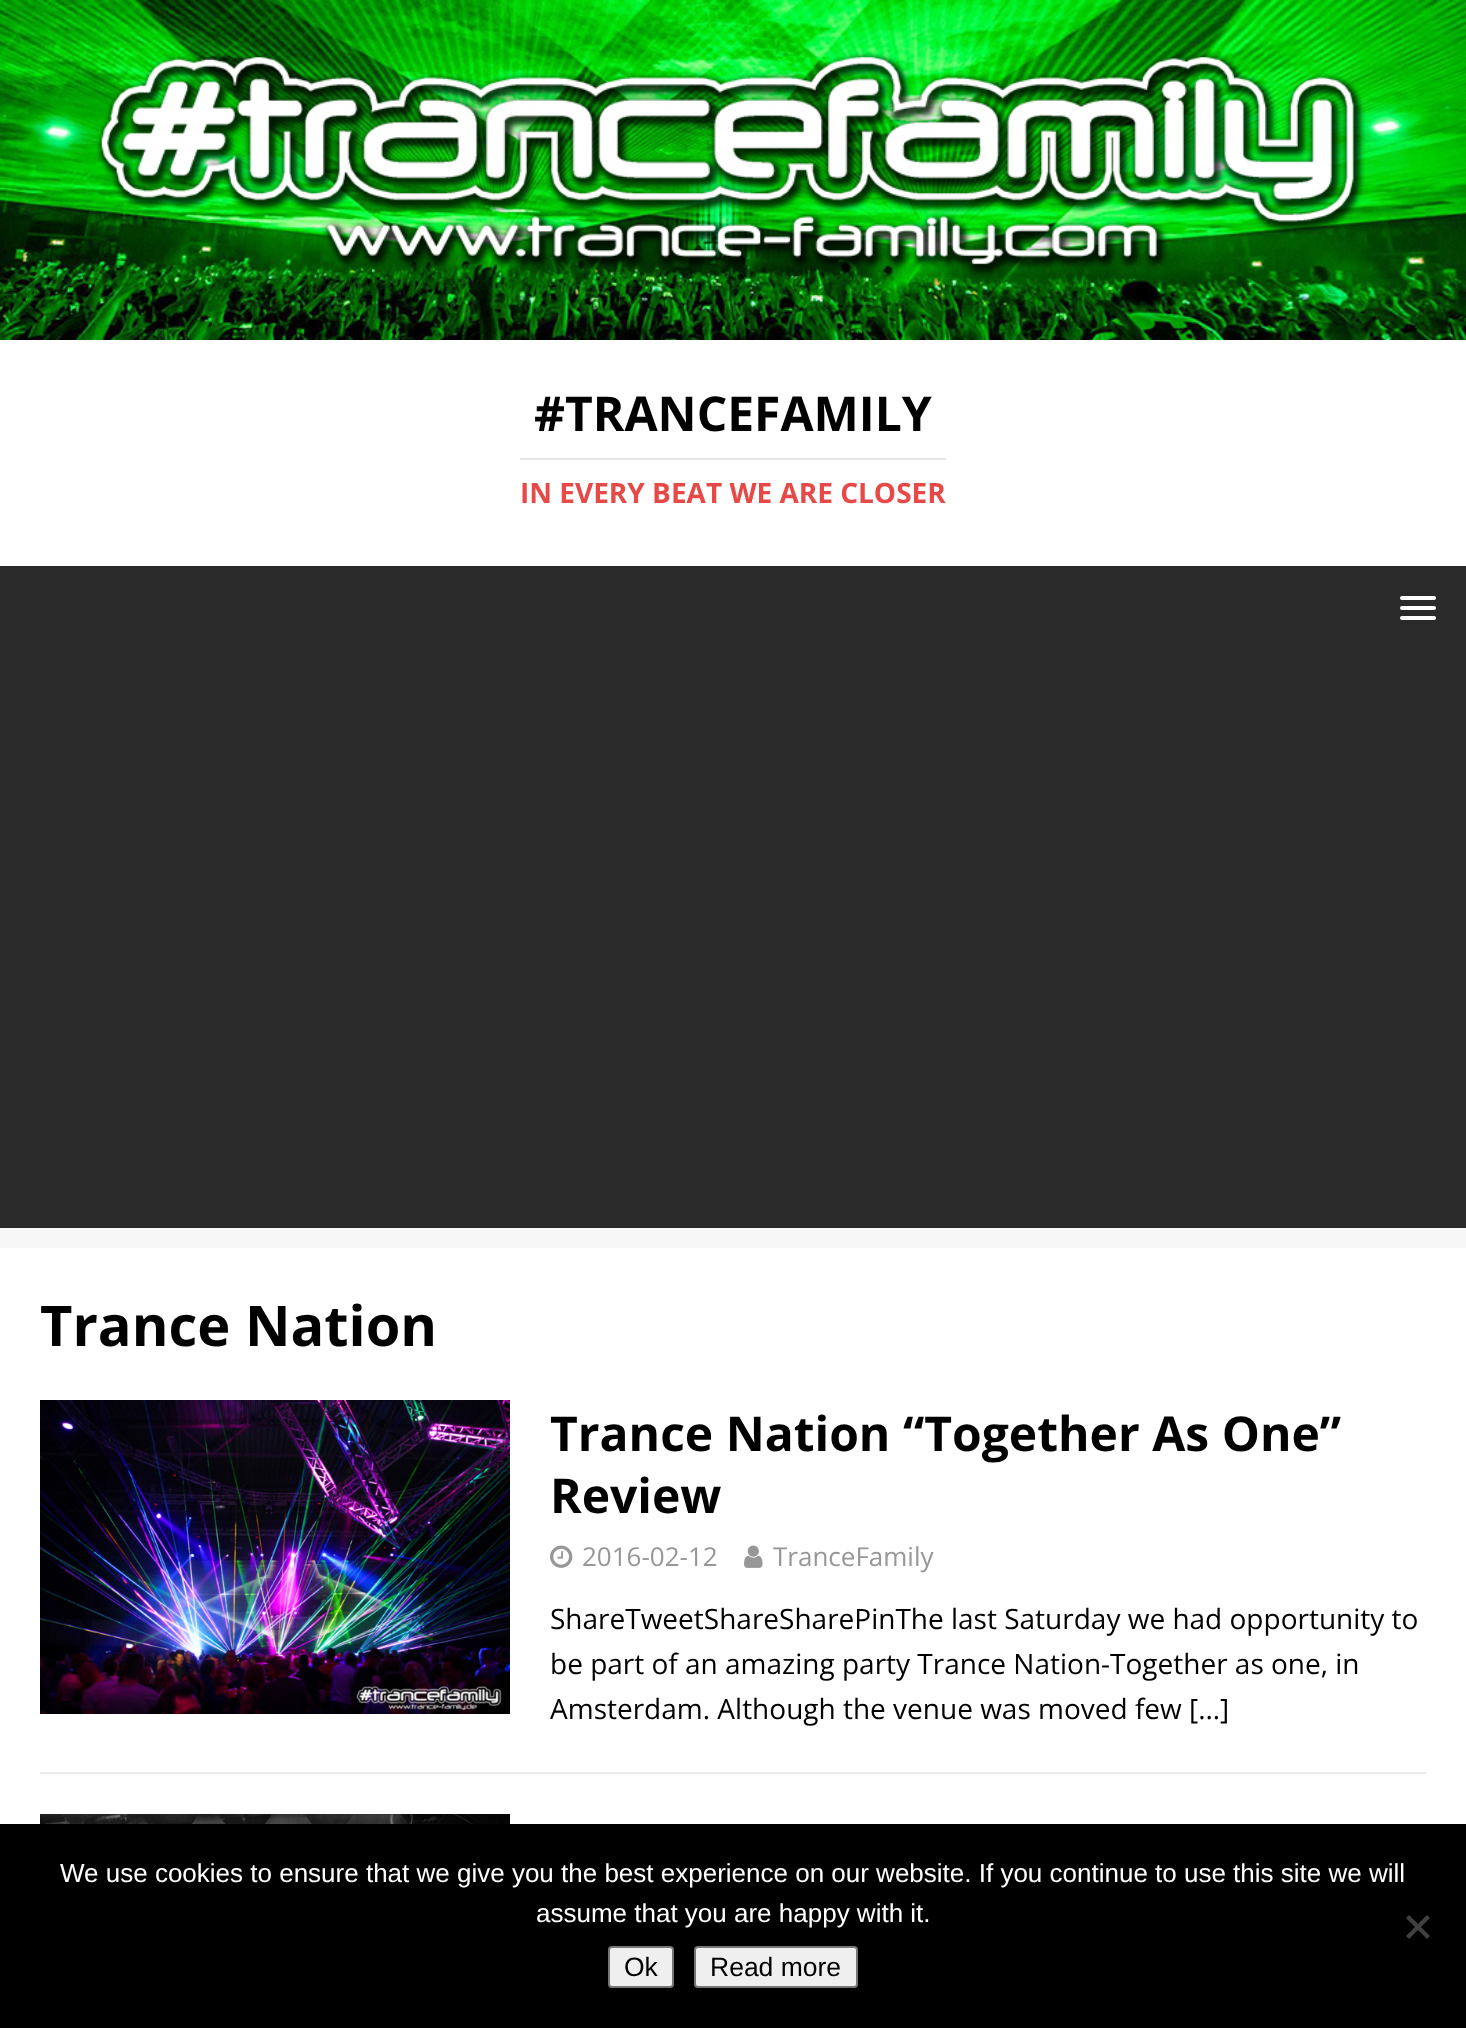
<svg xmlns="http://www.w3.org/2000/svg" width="1466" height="2028">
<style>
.a{font:bold 48px Open Sans;fill:#000}
.b{font:bold 28px Open Sans;fill:#e64946}
.c{font:bold 56px Open Sans;fill:#000}
.d{font:26px Open Sans;fill:#979797}
.e{font:28px Open Sans;fill:#000}
.f{font:26px Liberation Sans;fill:#fff}
.g{font:26.5px Liberation Sans;fill:#000}
</style>
<rect width="100%" height="100%" fill="#f7f7f7"/>
<path fill="#fff" d="M0 340h1466v226H0z"/>
<image href="1.png" x="0" y="0" width="1466" height="340"/>
<path fill="#e5e5e5" d="M520 458h426v2H520z"/>
<path fill="#2a2a2a" d="M0 566h1466v662H0z"/>
<rect fill="#fff" x="1400" y="596" width="36" height="4" rx="2"/>
<rect fill="#fff" x="1400" y="606" width="36" height="4" rx="2"/>
<rect fill="#fff" x="1400" y="616" width="36" height="4" rx="2"/>
<path fill="#fff" d="M0 1248h1466v576H0z"/>
<path fill="#ebebeb" d="M40 1772h1386v2H40z"/>
<image href="2.png" x="40" y="1400" width="470" height="314"/>
<image href="3.png" x="550" y="1545" width="23" height="23"/>
<image href="4.png" x="744" y="1545" width="19" height="23"/>
<image href="5.png" x="40" y="1814" width="470" height="10"/>
<path fill="#000" d="M0 1824h1466v204H0z"/>
<path fill="#404040" d="M1427 1915l3 3l-21 21l-3-3z"/>
<path fill="#404040" d="M1406 1918l3-3l21 21l-3 3z"/>
<rect fill="#efefef" stroke="#767676" stroke-width="2" x="609" y="1947" width="64" height="40" rx="3"/>
<rect fill="#efefef" stroke="#767676" stroke-width="2" x="695" y="1947" width="162" height="40" rx="3"/>
<text class="a" x="534" y="431">#TRANCEFAMILY</text>
<text class="b" x="520" y="503">IN EVERY BEAT WE ARE CLOSER</text>
<text class="c" x="40" y="1346">Trance Nation</text>
<text class="a" x="550" y="1451">Trance Nation “Together As One”</text>
<text class="a" x="550" y="1513">Review</text>
<text class="d" x="582" y="1566">2016-02-12</text>
<text class="d" x="773" y="1566">TranceFamily</text>
<text class="e" x="550" y="1629">ShareTweetShareSharePinThe last Saturday we had opportunity to</text>
<text class="e" x="550" y="1674">be part of an amazing party Trance Nation-Together as one, in</text>
<text class="e" x="550" y="1719">Amsterdam. Although the venue was moved few […]</text>
<text class="f" x="60" y="1882">We use cookies to ensure that we give you the best experience on our website. If you continue to use this site we will</text>
<text class="f" x="536" y="1922">assume that you are happy with it.</text>
<text class="g" x="624" y="1976">Ok</text>
<text class="g" x="710" y="1976">Read more</text>
</svg>
